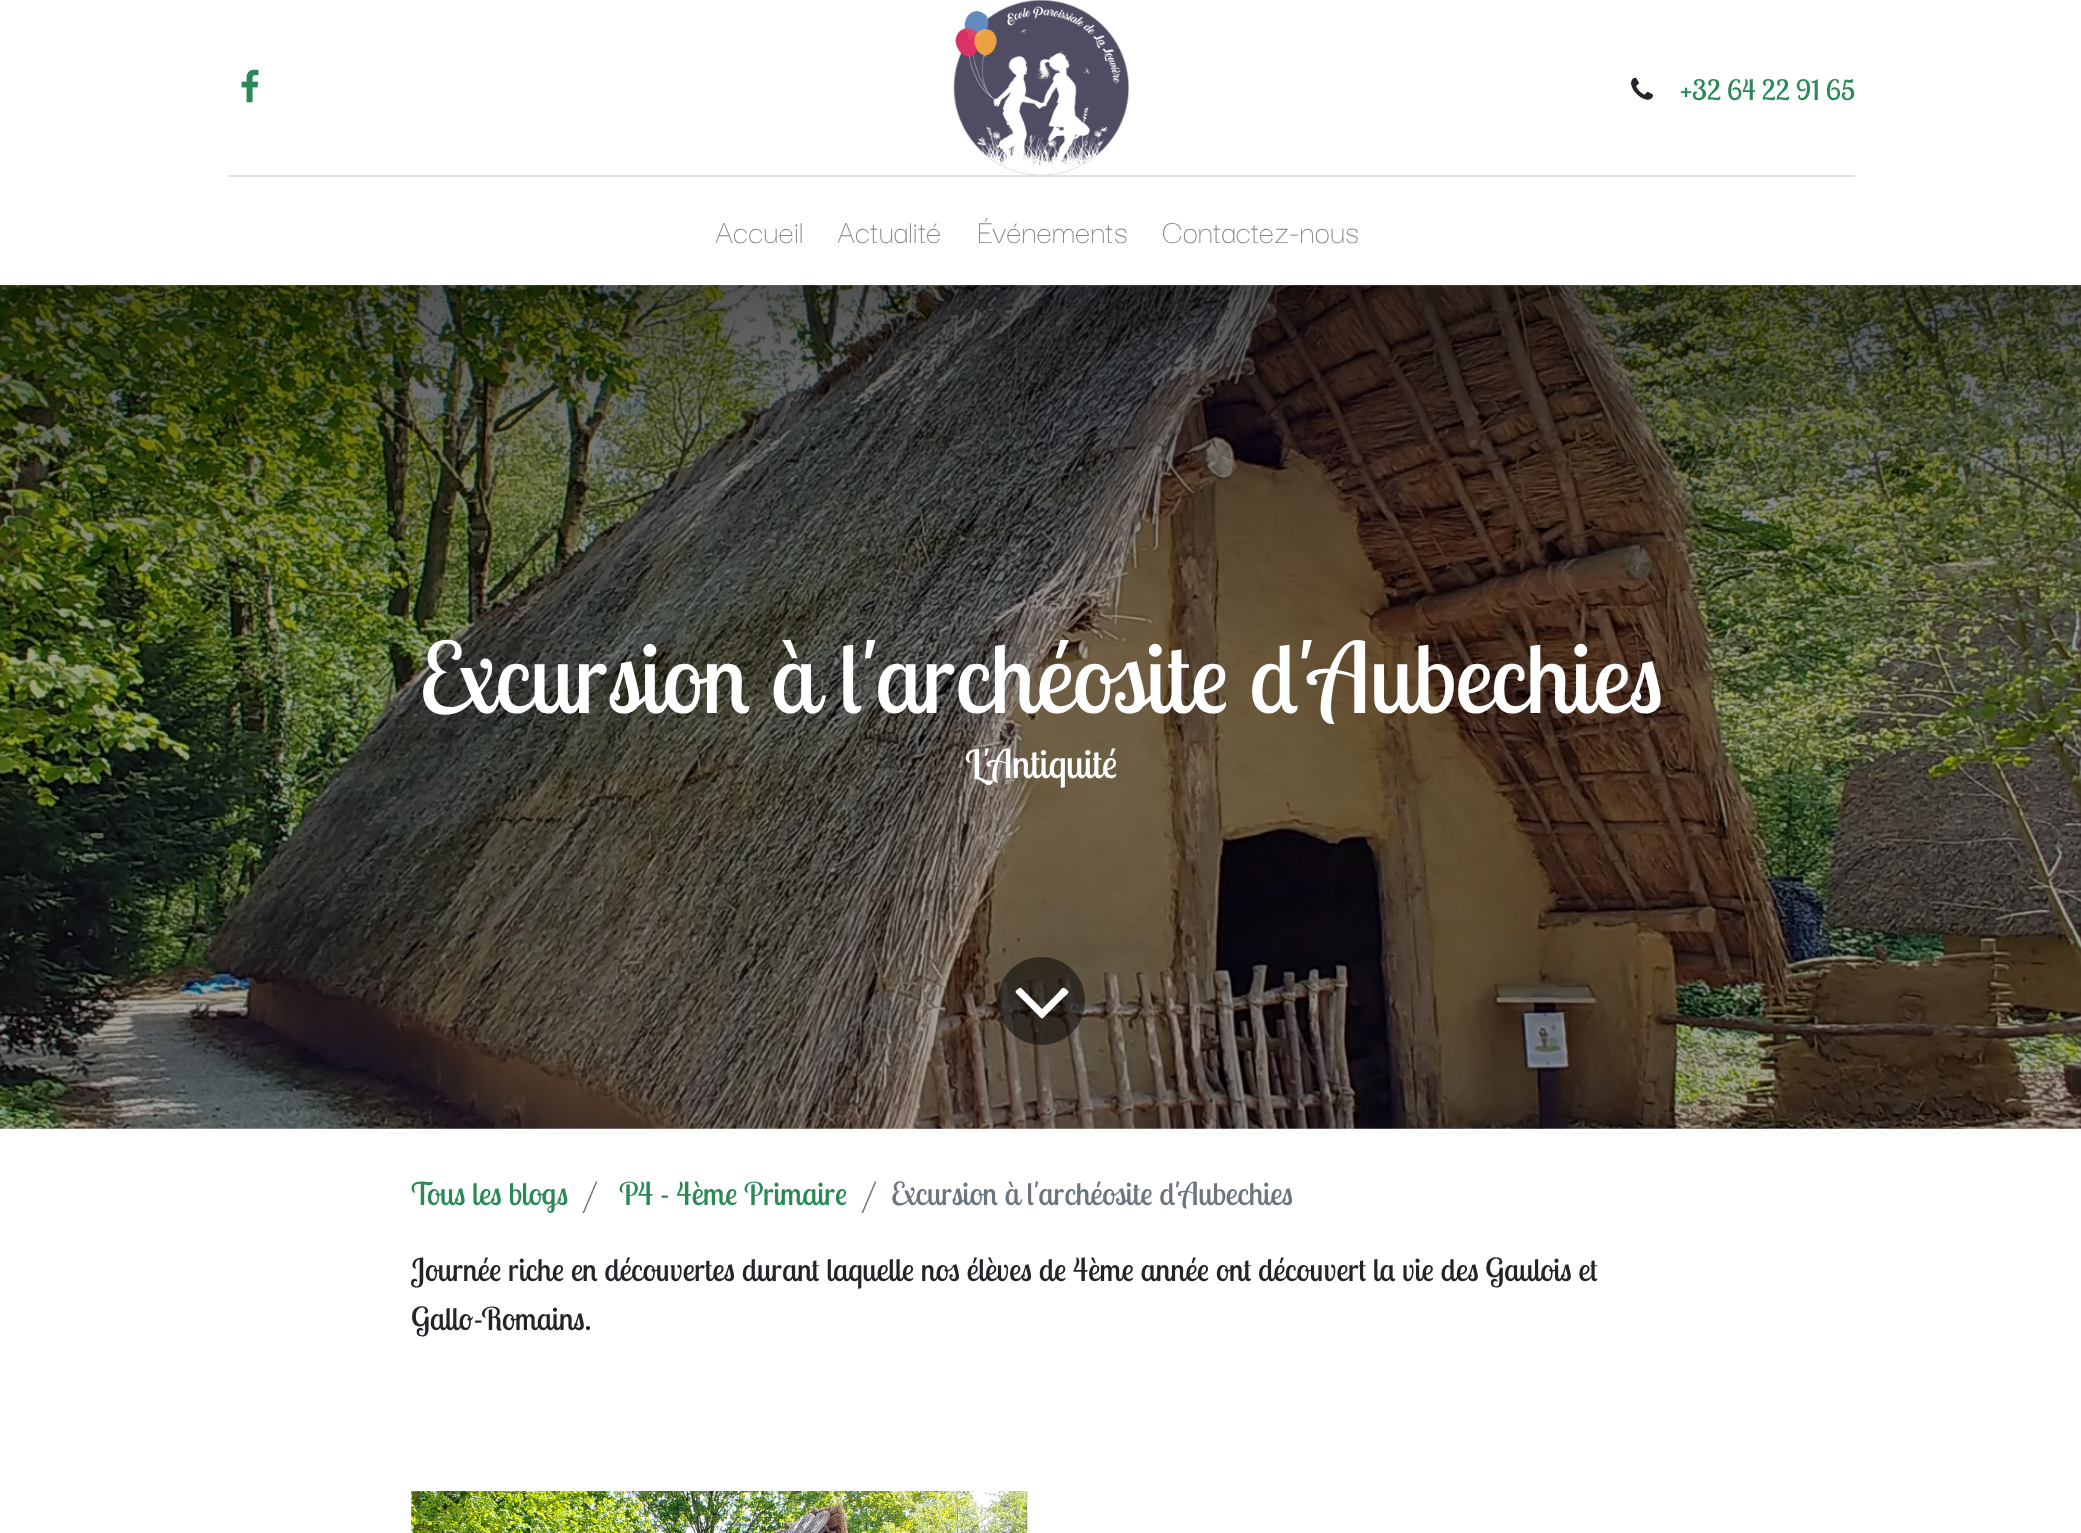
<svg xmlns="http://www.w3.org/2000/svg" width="2081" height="1533">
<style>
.a{font:28px Lobster Two;fill:#2a8957}
.b{font:300 35px Darker Grotesque;fill:#808080}
.c{font:97.5px Lobster Two;fill:#fff}
.d{font:39.5px Lobster Two;fill:#fff}
.e{font:31.5px Lobster Two;fill:#2a8957}
.f{font:31.5px Lobster Two;fill:#6c757d}
.g{font:31.5px Lobster Two;fill:#212529}
</style>
<defs>
<linearGradient id="g1" gradientUnits="userSpaceOnUse" x1="1041" y1="285" x2="1041" y2="707"><stop offset="0" stop-color="#000" stop-opacity="0.5"/><stop offset="0.19" stop-color="#000" stop-opacity="0.37"/><stop offset="0.34" stop-color="#000" stop-opacity="0.27"/><stop offset="0.47" stop-color="#000" stop-opacity="0.19"/><stop offset="0.56" stop-color="#000" stop-opacity="0.14"/><stop offset="0.65" stop-color="#000" stop-opacity="0.1"/><stop offset="0.73" stop-color="#000" stop-opacity="0.06"/><stop offset="0.8" stop-color="#000" stop-opacity="0.04"/><stop offset="0.86" stop-color="#000" stop-opacity="0.02"/><stop offset="0.91" stop-color="#000" stop-opacity="0.01"/><stop offset="0.95" stop-color="#000" stop-opacity="0"/><stop offset="0.98" stop-color="#000" stop-opacity="0"/><stop offset="1" stop-color="#000" stop-opacity="0"/></linearGradient>
</defs>
<rect width="100%" height="100%" fill="#fff"/>
<image href="1.png" x="241" y="69" width="18" height="34"/>
<image href="2.png" x="953" y="0" width="176" height="175"/>
<image href="3.png" x="1631" y="77" width="22" height="23"/>
<path fill="#dee2e6" d="M228 175h1627v2H228z"/>
<image href="4.png" x="0" y="285" width="2081" height="844"/>
<path fill="url(#g1)" d="M0 285h2081v361H0z"/>
<rect fill="#00000080" x="998" y="957" width="87" height="88" rx="43.5"/>
<path fill="#fff" d="M1068 991c2 2-4 6-4 6l-17 17c-6 6-4 6-10 0l-21-21c-1-1 0-3 1-3c4-4 4-2 8 2l17 17l14-14c7-7 6-10 12-4z"/>
<image href="5.png" x="411" y="1491" width="617" height="42"/>
<text class="a" x="1680" y="100">+32 64 22 91 65</text>
<text class="b" x="715" y="243">Accueil</text>
<text class="b" x="837" y="243">Actualité</text>
<text class="b" x="977" y="243">Événements</text>
<text class="b" x="1162" y="243">Contactez-nous</text>
<text class="c" x="419" y="713">Excursion à l'archéosite d'Aubechies</text>
<text class="d" x="965" y="778">L'Antiquité</text>
<text class="e" x="411" y="1205">Tous les blogs</text>
<text class="f" x="582" y="1205">/</text>
<text class="e" x="619" y="1205">P4 - 4ème Primaire</text>
<text class="f" x="861" y="1205">/</text>
<text class="f" x="891" y="1205">Excursion à l'archéosite d'Aubechies</text>
<text class="g" x="411" y="1281">Journée riche en découvertes durant laquelle nos élèves de 4ème année ont découvert la vie des Gaulois et</text>
<text class="g" x="411" y="1330">Gallo-Romains.</text>
</svg>
